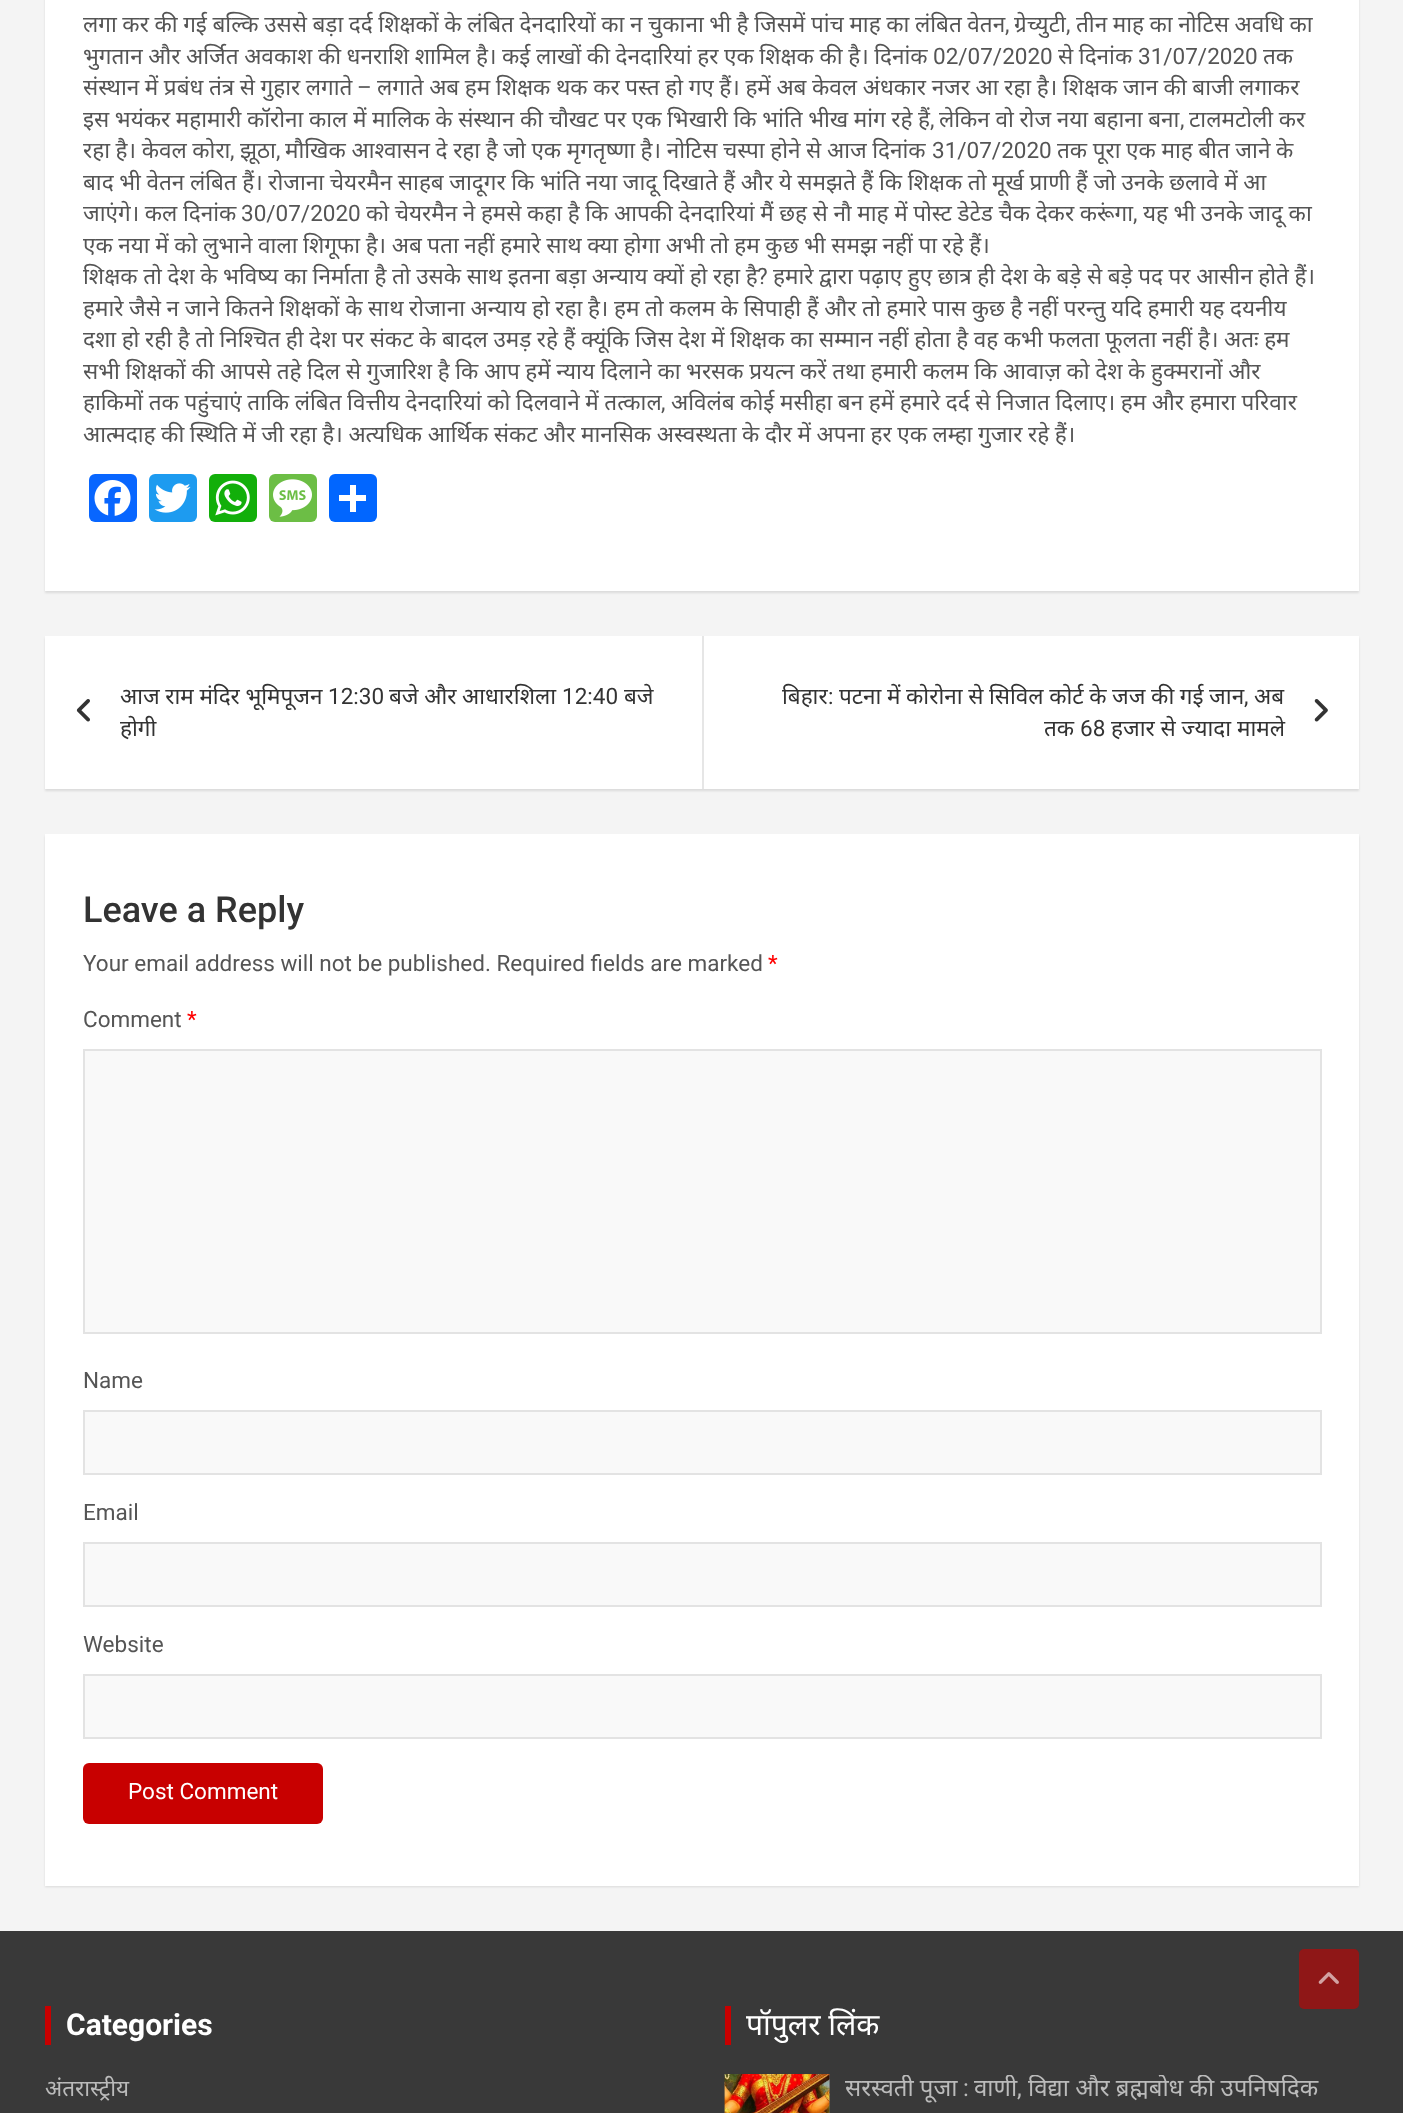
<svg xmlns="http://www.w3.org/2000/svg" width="1403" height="2113">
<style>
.a{font:22.5px Noto Sans;fill:#555}
.b{font:22.5px Roboto;fill:#555}
.c{font:22.5px Noto Sans;fill:#333}
.d{font:22.5px Roboto;fill:#333}
.e{font:500 36px Roboto;fill:#333}
.f{font:22.5px Roboto;fill:#f00}
.g{font:22.5px Roboto;fill:#fff}
.h{font:bold 30px Roboto;fill:#fff}
.i{font:22.5px Noto Sans;fill:#bbb}
.j{font:30px Noto Sans;fill:#fff}
.k{font:24px Noto Sans;fill:#bbb}
.l{font:24px Roboto;fill:#bbb}
</style>
<defs>
<clipPath id="clip1"><path d="M45 2075h635v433H45z"/></clipPath>
<clipPath id="clip2"><path d="M845 2075h514v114H845z"/></clipPath>
</defs>
<rect width="100%" height="100%" fill="#f4f4f4"/>
<path fill="#0000001a" filter="blur(1px)" d="M45 -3h1314v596H45z"/>
<path fill="#fff" d="M45 0h1314v591H45z"/>
<rect fill="#0866ff" x="89" y="474" width="48" height="48" rx="6"/>
<image href="1.png" x="94" y="480" width="37" height="36"/>
<rect fill="#1d9bf0" x="149" y="474" width="48" height="48" rx="6"/>
<image href="2.png" x="154" y="483" width="37" height="30"/>
<rect fill="#12af0a" x="209" y="474" width="48" height="48" rx="6"/>
<image href="3.png" x="215" y="480" width="35" height="36"/>
<rect fill="#6cbe45" x="269" y="474" width="48" height="48" rx="6"/>
<image href="4.png" x="273" y="479" width="39" height="38"/>
<rect fill="#0166ff" x="329" y="474" width="48" height="48" rx="6"/>
<path fill="#fff" d="M350 485h6v27H350z"/>
<path fill="#fff" d="M339 495h27v6H339z"/>
<path fill="#0000001a" filter="blur(1px)" d="M45 638h1314v153H45z"/>
<path fill="#fff" d="M45 636h1314v153H45z"/>
<image href="5.png" x="76" y="699" width="14" height="23"/>
<path fill="#e6e6e6" d="M702 636h2v153H702z"/>
<image href="6.png" x="1314" y="699" width="14" height="23"/>
<path fill="#0000001a" filter="blur(1px)" d="M45 836h1314v1051H45z"/>
<path fill="#fff" d="M45 834h1314v1052H45z"/>
<path fill="#f9f9f9" stroke="#e3e3e3" stroke-width="2" d="M84 1050h1237v283H84z"/>
<path fill="#f9f9f9" stroke="#e3e3e3" stroke-width="2" d="M84 1411h1237v63H84z"/>
<path fill="#f9f9f9" stroke="#e3e3e3" stroke-width="2" d="M84 1543h1237v63H84z"/>
<path fill="#f9f9f9" stroke="#e3e3e3" stroke-width="2" d="M84 1675h1237v63H84z"/>
<rect fill="#c80000" x="83" y="1763" width="240" height="61" rx="6"/>
<path fill="#393939" d="M0 1931h1403v182H0z"/>
<rect fill="#8f1717" x="1299" y="1949" width="60" height="60" rx="5"/>
<image href="7.png" x="1318" y="1972" width="21" height="12"/>
<path fill="#c80000" d="M45 2006h6v39H45z"/>
<path fill="#c80000" d="M725 2006h6v39H725z"/>
<path fill="#555" d="M829 2075h1v38H829z"/>
<image href="8.png" x="724" y="2074" width="106" height="39"/>
<text class="a" x="83" y="32" word-spacing="-0.25">लगा कर की गई बल्कि उससे बड़ा दर्द शिक्षकों के लंबित देनदारियों का न चुकाना भी है जिसमें पांच माह का लंबित वेतन</text>
<text class="a" x="1076" y="32" word-spacing="-0.25">तीन माह का नोटिस अवधि का</text>
<text class="b" x="1005" y="32">,</text>
<text class="a" x="1014" y="32">ग्रेच्युटी</text>
<text class="b" x="1066" y="32">,</text>
<text class="a" x="83" y="64" word-spacing="-0.25">भुगतान और अर्जित अवकाश की धनराशि शामिल है। कई लाखों की देनदारियां हर एक शिक्षक की है। दिनांक</text>
<text class="b" x="933" y="64">02/07/2020</text>
<text class="a" x="1058" y="64" word-spacing="-0.25">से दिनांक</text>
<text class="b" x="1138" y="64">31/07/2020</text>
<text class="a" x="1263" y="64">तक</text>
<text class="a" x="83" y="95" word-spacing="-0.25">संस्थान में प्रबंध तंत्र से गुहार लगाते</text>
<text class="b" x="357" y="95">–</text>
<text class="a" x="377" y="95" word-spacing="-0.25">लगाते अब हम शिक्षक थक कर पस्त हो गए हैं। हमें अब केवल अंधकार नजर आ रहा है। शिक्षक जान की बाजी लगाकर</text>
<text class="a" x="83" y="127" word-spacing="-0.25">इस भयंकर महामारी कॉरोना काल में मालिक के संस्थान की चौखट पर एक भिखारी कि भांति भीख मांग रहे हैं</text>
<text class="a" x="1189" y="127" word-spacing="-0.25">टालमटोली कर</text>
<text class="b" x="930" y="127">,</text>
<text class="a" x="939" y="127" word-spacing="-0.25">लेकिन वो रोज नया बहाना बना</text>
<text class="b" x="1180" y="127">,</text>
<text class="a" x="83" y="158" word-spacing="-0.25">रहा है। केवल कोरा</text>
<text class="a" x="285" y="158" word-spacing="-0.25">मौखिक आश्वासन दे रहा है जो एक मृगतृष्णा है। नोटिस चस्पा होने से आज दिनांक</text>
<text class="b" x="932" y="158">31/07/2020</text>
<text class="a" x="1057" y="158" word-spacing="-0.25">तक पूरा एक माह बीत जाने के</text>
<text class="b" x="230" y="158">,</text>
<text class="a" x="240" y="158">झूठा</text>
<text class="b" x="276" y="158">,</text>
<text class="a" x="83" y="190" word-spacing="-0.25">बाद भी वेतन लंबित हैं। रोजाना चेयरमैन साहब जादूगर कि भांति नया जादू दिखाते हैं और ये समझते हैं कि शिक्षक तो मूर्ख प्राणी हैं जो उनके छलावे में आ</text>
<text class="a" x="83" y="221" word-spacing="-0.25">जाएंगे। कल दिनांक</text>
<text class="b" x="241" y="221">30/07/2020</text>
<text class="a" x="366" y="221" word-spacing="-0.25">को चेयरमैन ने हमसे कहा है कि आपकी देनदारियां मैं छह से नौ माह में पोस्ट डेटेड चैक देकर करूंगा</text>
<text class="b" x="1133" y="221">,</text>
<text class="a" x="1143" y="221" word-spacing="-0.25">यह भी उनके जादू का</text>
<text class="a" x="83" y="253" word-spacing="-0.25">एक नया में को लुभाने वाला शिगूफा है। अब पता नहीं हमारे साथ क्या होगा अभी तो हम कुछ भी समझ नहीं पा रहे हैं।</text>
<text class="a" x="83" y="284" word-spacing="-0.25">शिक्षक तो देश के भविष्य का निर्माता है तो उसके साथ इतना बड़ा अन्याय क्यों हो रहा है</text>
<text class="b" x="757" y="284">?</text>
<text class="a" x="773" y="284" word-spacing="-0.25">हमारे द्वारा पढ़ाए हुए छात्र ही देश के बड़े से बड़े पद पर आसीन होते हैं।</text>
<text class="a" x="83" y="316" word-spacing="-0.25">हमारे जैसे न जाने कितने शिक्षकों के साथ रोजाना अन्याय हो रहा है। हम तो कलम के सिपाही हैं और तो हमारे पास कुछ है नहीं परन्तु यदि हमारी यह दयनीय</text>
<text class="a" x="83" y="347" word-spacing="-0.25">दशा हो रही है तो निश्चित ही देश पर संकट के बादल उमड़ रहे हैं क्यूंकि जिस देश में शिक्षक का सम्मान नहीं होता है वह कभी फलता फूलता नहीं है। अतः हम</text>
<text class="a" x="83" y="379" word-spacing="-0.25">सभी शिक्षकों की आपसे तहे दिल से गुजारिश है कि आप हमें न्याय दिलाने का भरसक प्रयत्न करें तथा हमारी कलम कि आवाज़ को देश के हुक्मरानों और</text>
<text class="a" x="83" y="410" word-spacing="-0.25">हाकिमों तक पहुंचाएं ताकि लंबित वित्तीय देनदारियां को दिलवाने में तत्काल</text>
<text class="b" x="661" y="410">,</text>
<text class="a" x="671" y="410" word-spacing="-0.25">अविलंब कोई मसीहा बन हमें हमारे दर्द से निजात दिलाए। हम और हमारा परिवार</text>
<text class="a" x="83" y="442" word-spacing="-0.25">आत्मदाह की स्थिति में जी रहा है। अत्यधिक आर्थिक संकट और मानसिक अस्वस्थता के दौर में अपना हर एक लम्हा गुजार रहे हैं।</text>
<text class="c" x="120" y="704" word-spacing="-0.25">आज राम मंदिर भूमिपूजन</text>
<text class="d" x="328" y="704">12:30</text>
<text class="c" x="389" y="704" word-spacing="-0.25">बजे और आधारशिला</text>
<text class="d" x="562" y="704">12:40</text>
<text class="c" x="624" y="704">बजे</text>
<text class="c" x="120" y="736">होगी</text>
<text class="c" x="782" y="704">बिहार</text>
<text class="d" x="828" y="704">:</text>
<text class="c" x="839" y="704" word-spacing="-0.25">पटना में कोरोना से सिविल कोर्ट के जज की गई जान</text>
<text class="d" x="1244" y="704">,</text>
<text class="c" x="1254" y="704">अब</text>
<text class="c" x="1044" y="736">तक</text>
<text class="d" x="1080" y="736">68</text>
<text class="c" x="1111" y="736">हजार से ज्यादा मामले</text>
<text class="e" x="83" y="922">Leave a Reply</text>
<text class="b" x="83" y="971">Your email address will not be published. Required fields are marked</text>
<text class="f" x="768" y="971">*</text>
<text class="b" x="83" y="1027">Comment</text>
<text class="f" x="187" y="1027">*</text>
<text class="b" x="83" y="1388">Name</text>
<text class="b" x="83" y="1520">Email</text>
<text class="b" x="83" y="1652">Website</text>
<text class="g" x="128" y="1799">Post Comment</text>
<text class="h" x="66" y="2035">Categories</text>
<g clip-path="url(#clip1)">
<text class="i" x="45" y="2096">अंतरास्ट्रीय</text>
</g>
<text class="j" x="746" y="2035">पॉपुलर लिंक</text>
<g clip-path="url(#clip2)">
<text class="k" x="845" y="2096">सरस्वती पूजा</text>
</g>
<text class="l" x="963" y="2096">:</text>
<g clip-path="url(#clip2)">
<text class="k" x="974" y="2096">वाणी</text>
</g>
<text class="l" x="1017" y="2096">,</text>
<g clip-path="url(#clip2)">
<text class="k" x="1028" y="2096">विद्या और ब्रह्मबोध की उपनिषदिक</text>
</g>
</svg>
